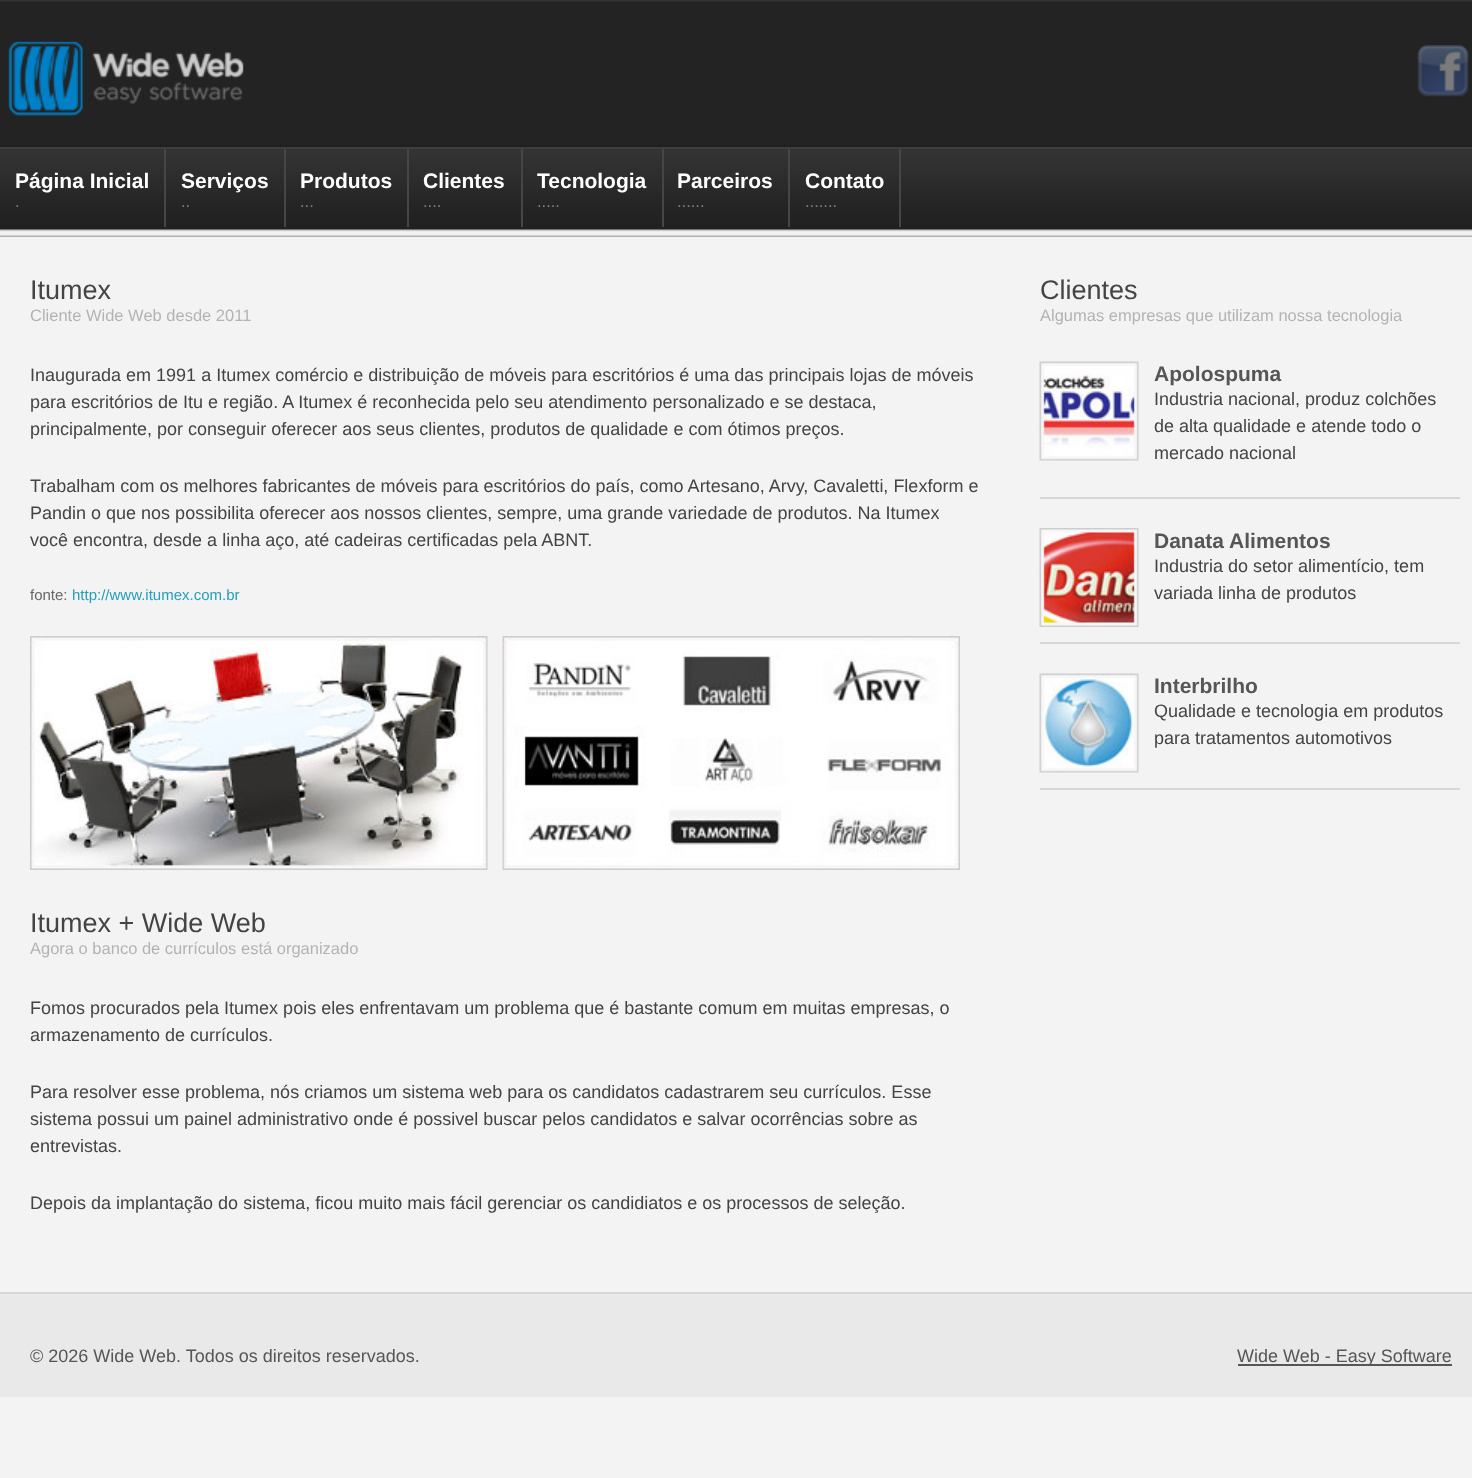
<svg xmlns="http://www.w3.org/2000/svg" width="1472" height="1478">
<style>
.a{font:bold 21px Liberation Sans;fill:#fffefe}
.b{font:16.5px Liberation Sans;fill:#7f7f7f}
.c{font:27px Liberation Sans;fill:#444}
.d{font:16.5px Liberation Sans;fill:#b3b3b3}
.e{font:18px Liberation Sans;fill:#444}
.f{font:15px Liberation Sans;fill:#666}
.g{font:15px Liberation Sans;fill:#22a0b8}
.h{font:bold 21px Liberation Sans;fill:#565656}
.i{font:18px Liberation Sans;fill:#565656}
</style>
<rect width="100%" height="100%" fill="#f3f3f3"/>
<image href="1.png" x="0" y="0" width="1472" height="237"/>
<image href="2.png" x="8" y="41" width="236" height="75"/>
<image href="3.png" x="1417" y="45" width="52" height="52"/>
<path fill="#464646" d="M164 149h2v78H164z"/>
<path fill="#464646" d="M284 149h2v78H284z"/>
<path fill="#464646" d="M407 149h2v78H407z"/>
<path fill="#464646" d="M521 149h2v78H521z"/>
<path fill="#464646" d="M662 149h2v78H662z"/>
<path fill="#464646" d="M788 149h2v78H788z"/>
<path fill="#464646" d="M899 149h2v78H899z"/>
<image href="4.png" x="30" y="636" width="458" height="234"/>
<image href="5.png" x="502" y="636" width="458" height="234"/>
<image href="6.png" x="1039" y="361" width="100" height="100"/>
<path fill="#d7d7d7" d="M1040 497h420v2H1040z"/>
<image href="7.png" x="1039" y="528" width="100" height="99"/>
<path fill="#d7d7d7" d="M1040 642h420v2H1040z"/>
<image href="8.png" x="1039" y="673" width="100" height="100"/>
<path fill="#d7d7d7" d="M1040 788h420v2H1040z"/>
<path fill="#e9e9e9" d="M0 1294h1472v103H0z"/>
<path fill="#d7d7d7" d="M0 1292h1472v2H0z"/>
<path fill="#565656" d="M1238 1364h214v2H1238z"/>
<text class="a" x="15" y="188">Página Inicial</text>
<text class="b" x="15" y="207">.</text>
<text class="a" x="181" y="188">Serviços</text>
<text class="b" x="181" y="207">..</text>
<text class="a" x="300" y="188">Produtos</text>
<text class="b" x="300" y="207">...</text>
<text class="a" x="423" y="188">Clientes</text>
<text class="b" x="423" y="207">....</text>
<text class="a" x="537" y="188">Tecnologia</text>
<text class="b" x="537" y="207">.....</text>
<text class="a" x="677" y="188">Parceiros</text>
<text class="b" x="677" y="207">......</text>
<text class="a" x="805" y="188">Contato</text>
<text class="b" x="805" y="207">.......</text>
<text class="c" x="30" y="299">Itumex</text>
<text class="d" x="30" y="321">Cliente Wide Web desde 2011</text>
<text class="e" x="30" y="381">Inaugurada em 1991 a Itumex comércio e distribuição de móveis para escritórios é uma das principais lojas de móveis</text>
<text class="e" x="30" y="408">para escritórios de Itu e região. A Itumex é reconhecida pelo seu atendimento personalizado e se destaca,</text>
<text class="e" x="30" y="435">principalmente, por conseguir oferecer aos seus clientes, produtos de qualidade e com ótimos preços.</text>
<text class="e" x="30" y="492">Trabalham com os melhores fabricantes de móveis para escritórios do país, como Artesano, Arvy, Cavaletti, Flexform e</text>
<text class="e" x="30" y="519">Pandin o que nos possibilita oferecer aos nossos clientes, sempre, uma grande variedade de produtos. Na Itumex</text>
<text class="e" x="30" y="546">você encontra, desde a linha aço, até cadeiras certificadas pela ABNT.</text>
<text class="f" x="30" y="600">fonte:</text>
<text class="g" x="72" y="600">http://www.itumex.com.br</text>
<text class="c" x="30" y="932">Itumex + Wide Web</text>
<text class="d" x="30" y="954">Agora o banco de currículos está organizado</text>
<text class="e" x="30" y="1014">Fomos procurados pela Itumex pois eles enfrentavam um problema que é bastante comum em muitas empresas, o</text>
<text class="e" x="30" y="1041">armazenamento de currículos.</text>
<text class="e" x="30" y="1098">Para resolver esse problema, nós criamos um sistema web para os candidatos cadastrarem seu currículos. Esse</text>
<text class="e" x="30" y="1125">sistema possui um painel administrativo onde é possivel buscar pelos candidatos e salvar ocorrências sobre as</text>
<text class="e" x="30" y="1152">entrevistas.</text>
<text class="e" x="30" y="1209">Depois da implantação do sistema, ficou muito mais fácil gerenciar os candidiatos e os processos de seleção.</text>
<text class="c" x="1040" y="299">Clientes</text>
<text class="d" x="1040" y="321">Algumas empresas que utilizam nossa tecnologia</text>
<text class="h" x="1154" y="381">Apolospuma</text>
<text class="e" x="1154" y="405">Industria nacional, produz colchões</text>
<text class="e" x="1154" y="432">de alta qualidade e atende todo o</text>
<text class="e" x="1154" y="459">mercado nacional</text>
<text class="h" x="1154" y="548">Danata Alimentos</text>
<text class="e" x="1154" y="572">Industria do setor alimentício, tem</text>
<text class="e" x="1154" y="599">variada linha de produtos</text>
<text class="h" x="1154" y="693">Interbrilho</text>
<text class="e" x="1154" y="717">Qualidade e tecnologia em produtos</text>
<text class="e" x="1154" y="744">para tratamentos automotivos</text>
<text class="i" x="30" y="1362">© 2026 Wide Web. Todos os direitos reservados.</text>
<text class="i" x="1237" y="1362">Wide Web - Easy Software</text>
</svg>
